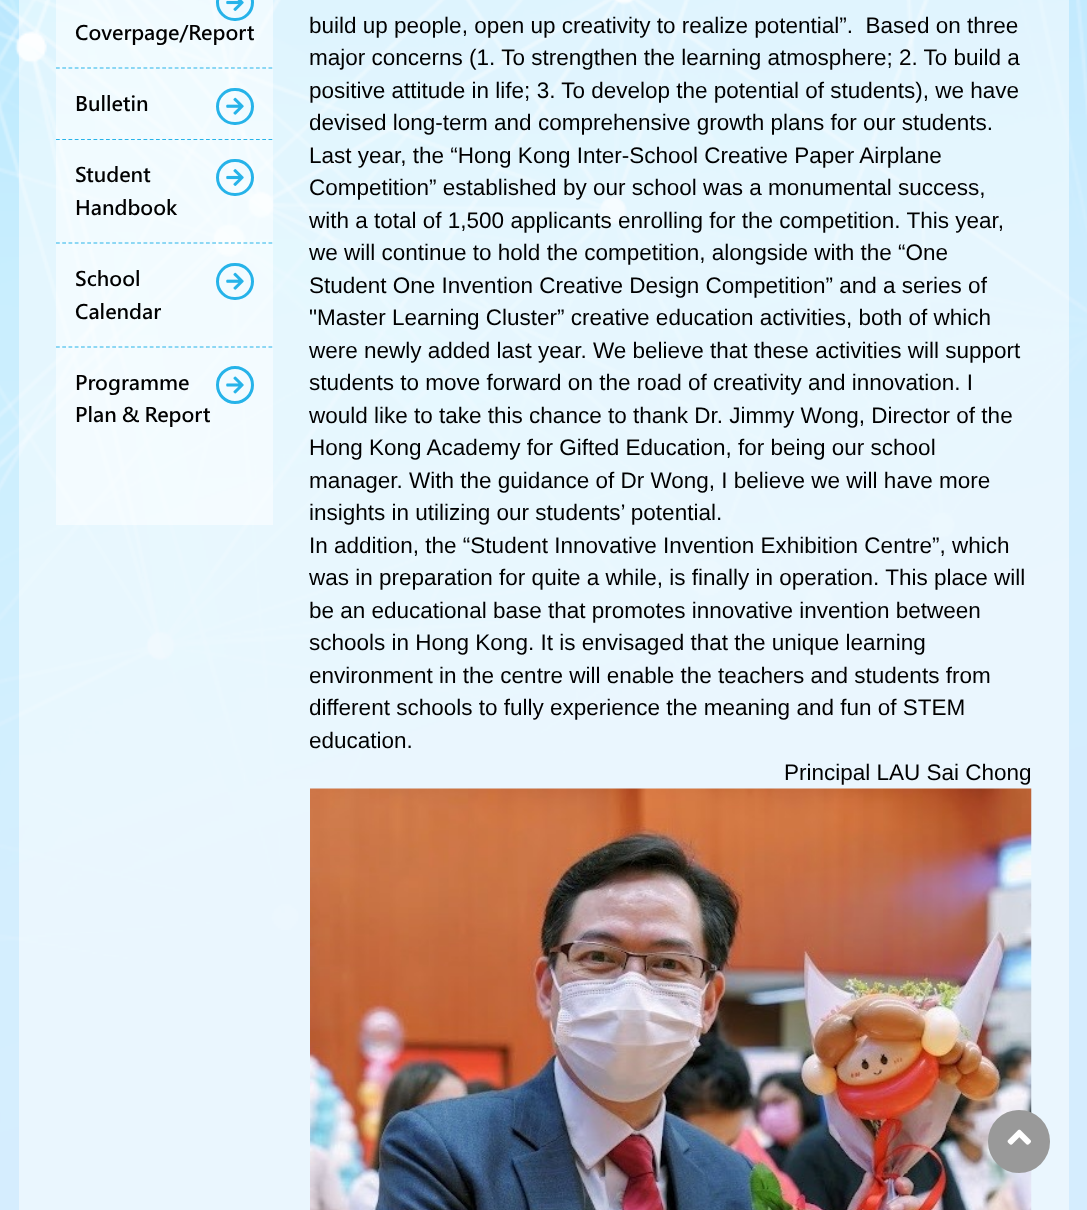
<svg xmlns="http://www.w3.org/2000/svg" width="1087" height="1210">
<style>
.a{font:bold 20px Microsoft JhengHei;fill:#000}
.b{font:22.5px Liberation Sans;fill:#000}
</style>
<rect width="100%" height="100%" fill="#fff"/>
<image href="1.png" x="0" y="0" width="1087" height="1210"/>
<path fill="#ffffff80" d="M56 0h217v525H56z"/>
<path fill="none" stroke="#26b3e9" stroke-width="1.2" stroke-dasharray="3.75 2.5" d="M56 68h216.5"/>
<rect fill="none" stroke="#26b3e9" stroke-width="3" x="217.5" y="-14.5" width="35" height="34" rx="17"/>
<image href="2.png" x="226" y="0" width="18" height="11"/>
<path fill="none" stroke="#26b3e9" stroke-width="1.2" stroke-dasharray="3.75 2.5" d="M56 139.5h216.5"/>
<rect fill="none" stroke="#26b3e9" stroke-width="3" x="217.5" y="89.5" width="35" height="34" rx="17"/>
<image href="3.png" x="226" y="97" width="18" height="18"/>
<path fill="none" stroke="#26b3e9" stroke-width="1.2" stroke-dasharray="3.75 2.5" d="M56 243h216.5"/>
<rect fill="none" stroke="#26b3e9" stroke-width="3" x="217.5" y="160.5" width="35" height="34" rx="17"/>
<image href="4.png" x="226" y="169" width="18" height="17"/>
<path fill="none" stroke="#26b3e9" stroke-width="1.2" stroke-dasharray="3.75 2.5" d="M56 347h216.5"/>
<rect fill="none" stroke="#26b3e9" stroke-width="3" x="217.5" y="264.5" width="35" height="34" rx="17"/>
<image href="5.png" x="226" y="272" width="18" height="18"/>
<circle fill="none" stroke="#26b3e9" stroke-width="3" cx="235" cy="385" r="17.5"/>
<image href="6.png" x="226" y="376" width="18" height="18"/>
<image href="7.png" x="310" y="788" width="722" height="422"/>
<rect fill="#999" x="988" y="1110" width="62" height="63" rx="31"/>
<image href="8.png" x="1007" y="1129" width="24" height="16"/>
<text class="a" x="75" y="40">Coverpage/Report</text>
<text class="a" x="75" y="111">Bulletin</text>
<text class="a" x="75" y="182">Student</text>
<text class="a" x="75" y="215">Handbook</text>
<text class="a" x="75" y="286">School</text>
<text class="a" x="75" y="319">Calendar</text>
<text class="a" x="75" y="390">Programme</text>
<text class="a" x="75" y="422">Plan &amp; Report</text>
<text class="b" xml:space="preserve" x="309" y="33">build up people, open up creativity to realize potential”.  Based on three</text>
<text class="b" x="309" y="65">major concerns (1. To strengthen the learning atmosphere; 2. To build a</text>
<text class="b" x="309" y="98">positive attitude in life; 3. To develop the potential of students), we have</text>
<text class="b" x="309" y="130">devised long-term and comprehensive growth plans for our students.</text>
<text class="b" x="309" y="163">Last year, the “Hong Kong Inter-School Creative Paper Airplane</text>
<text class="b" x="309" y="195">Competition” established by our school was a monumental success,</text>
<text class="b" x="309" y="228">with a total of 1,500 applicants enrolling for the competition. This year,</text>
<text class="b" x="309" y="260">we will continue to hold the competition, alongside with the “One</text>
<text class="b" x="309" y="293">Student One Invention Creative Design Competition” and a series of</text>
<text class="b" x="309" y="325">"Master Learning Cluster” creative education activities, both of which</text>
<text class="b" x="309" y="358">were newly added last year. We believe that these activities will support</text>
<text class="b" x="309" y="390">students to move forward on the road of creativity and innovation. I</text>
<text class="b" x="309" y="423">would like to take this chance to thank Dr. Jimmy Wong, Director of the</text>
<text class="b" x="309" y="455">Hong Kong Academy for Gifted Education, for being our school</text>
<text class="b" x="309" y="488">manager. With the guidance of Dr Wong, I believe we will have more</text>
<text class="b" x="309" y="520">insights in utilizing our students’ potential.</text>
<text class="b" x="309" y="553">In addition, the “Student Innovative Invention Exhibition Centre”, which</text>
<text class="b" x="309" y="585">was in preparation for quite a while, is finally in operation. This place will</text>
<text class="b" x="309" y="618">be an educational base that promotes innovative invention between</text>
<text class="b" x="309" y="650">schools in Hong Kong. It is envisaged that the unique learning</text>
<text class="b" x="309" y="683">environment in the centre will enable the teachers and students from</text>
<text class="b" x="309" y="715">different schools to fully experience the meaning and fun of STEM</text>
<text class="b" x="309" y="748">education.</text>
<text class="b" x="784" y="780">Principal LAU Sai Chong</text>
</svg>
